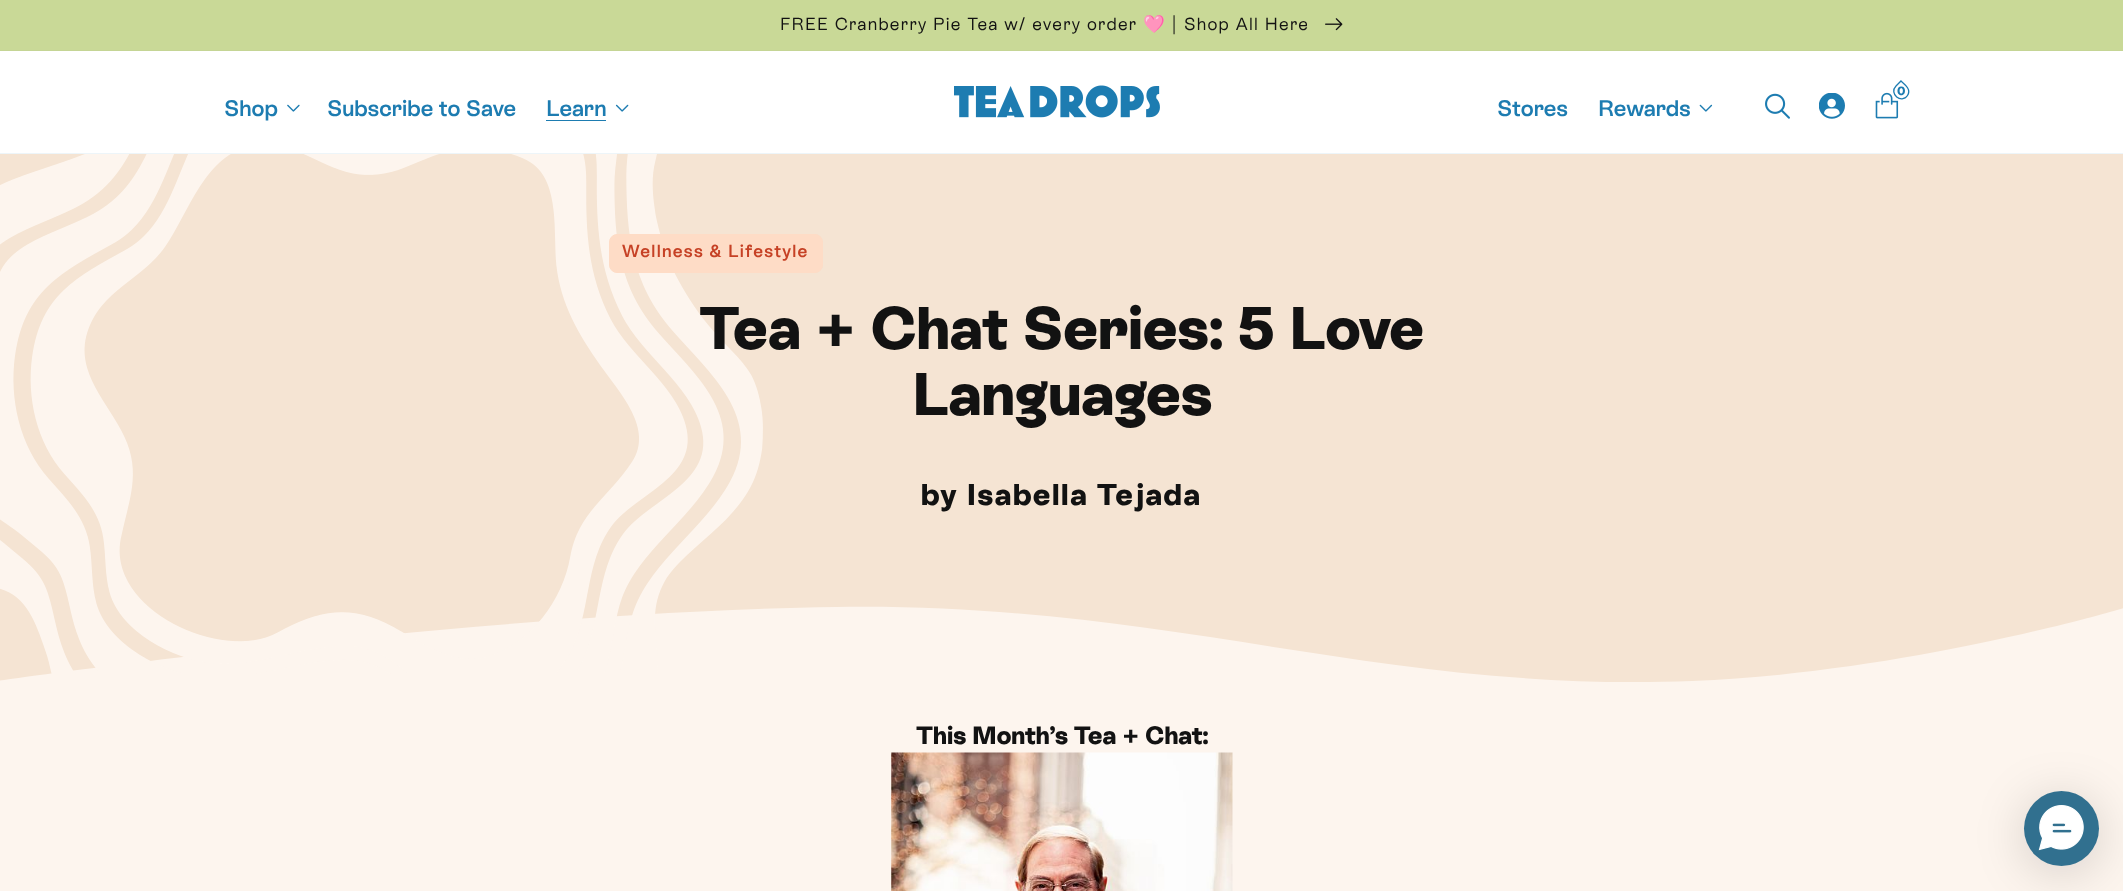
<svg xmlns="http://www.w3.org/2000/svg" width="2123" height="891">
<style>
.a{font:17.5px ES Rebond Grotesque;letter-spacing:1.25px;fill:#121212}
.b{font:bold 17.5px Noto Color Emoji;letter-spacing:1.25px;fill:#fff}
.c{font:600 22.5px ES Rebond Grotesque;fill:#1d7cb1}
.d{font:800 12px ES Rebond Grotesque;fill:#1d7cb1}
.e{font:600 17.5px ES Rebond Grotesque;letter-spacing:1.25px;fill:#c64125}
.f{font:800 60px ES Rebond Grotesque;fill:#121212}
.g{font:800 30px ES Rebond Grotesque;letter-spacing:1.6px;fill:#121212}
.h{font:800 25px ES Rebond Grotesque;fill:#121212}
</style>
<rect width="100%" height="100%" fill="#fdf5ee"/>
<path fill="#c5d595" d="M0 50h2123v1H0z"/>
<path fill="#c9d997" d="M0 0h2123v50H0z"/>
<image href="1.png" x="1325" y="18" width="18" height="13"/>
<path fill="#fff" d="M0 51h2123v102H0z"/>
<path fill="#edf5f9" d="M0 153h2123v1H0z"/>
<image href="2.png" x="287" y="104" width="13" height="8"/>
<path fill="#1d7cb1" d="M546 120h60v1H546z"/>
<image href="3.png" x="615" y="104" width="14" height="8"/>
<image href="4.png" x="954" y="85" width="206" height="33"/>
<image href="5.png" x="1875" y="92" width="24" height="27"/>
<path fill="none" stroke="#1d7cb1" stroke-width="1.3" d="M1901 81c4 3.5 10.5 8.5 6.5 14.5c-6 9-19-2-11.5-9.5z"/>
<image href="6.png" x="1699" y="104" width="14" height="8"/>
<image href="7.png" x="1765" y="93" width="25" height="26"/>
<image href="8.png" x="1819" y="93" width="26" height="26"/>
<path fill="#f5e4d3" d="M0 154h2123v356H0z"/>
<path fill="#f5e4d3" d="M-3 510h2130v97c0 0-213 65-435 74c-314 12-522-79-856-74c-364 5-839 74-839 74z"/>
<image href="9.png" x="0" y="154" width="763" height="520"/>
<rect fill="#fedcc6" stroke="#fedcc6" x="609.5" y="234.5" width="213" height="38" rx="7.5"/>
<image href="10.png" x="891" y="752" width="342" height="139"/>
<rect fill="#00000029" filter="blur(25px)" x="2024" y="798" width="75" height="75" rx="37.5"/>
<circle fill="#31708f" cx="2061.5" cy="828.5" r="37.5"/>
<image href="11.png" x="2038" y="805" width="46" height="46"/>
<text class="a" x="780" y="30">FREE Cranberry Pie Tea w/ every order</text>
<text class="b" x="1143" y="30">🩷</text>
<text class="a" x="1171" y="30">| Shop All Here</text>
<text class="c" x="224" y="116">Shop</text>
<text class="c" x="327" y="116">Subscribe to Save</text>
<text class="c" x="546" y="116">Learn</text>
<text class="d" x="1897" y="95">0</text>
<text class="c" x="1497" y="116">Stores</text>
<text class="c" x="1598" y="116">Rewards</text>
<text class="e" x="622" y="257">Wellness &amp; Lifestyle</text>
<text class="f" x="699" y="349">Tea + Chat Series: 5 Love</text>
<text class="f" x="912" y="415">Languages</text>
<text class="g" x="921" y="505">by Isabella Tejada</text>
<text class="h" x="916" y="744">This Month’s Tea + Chat:</text>
</svg>
